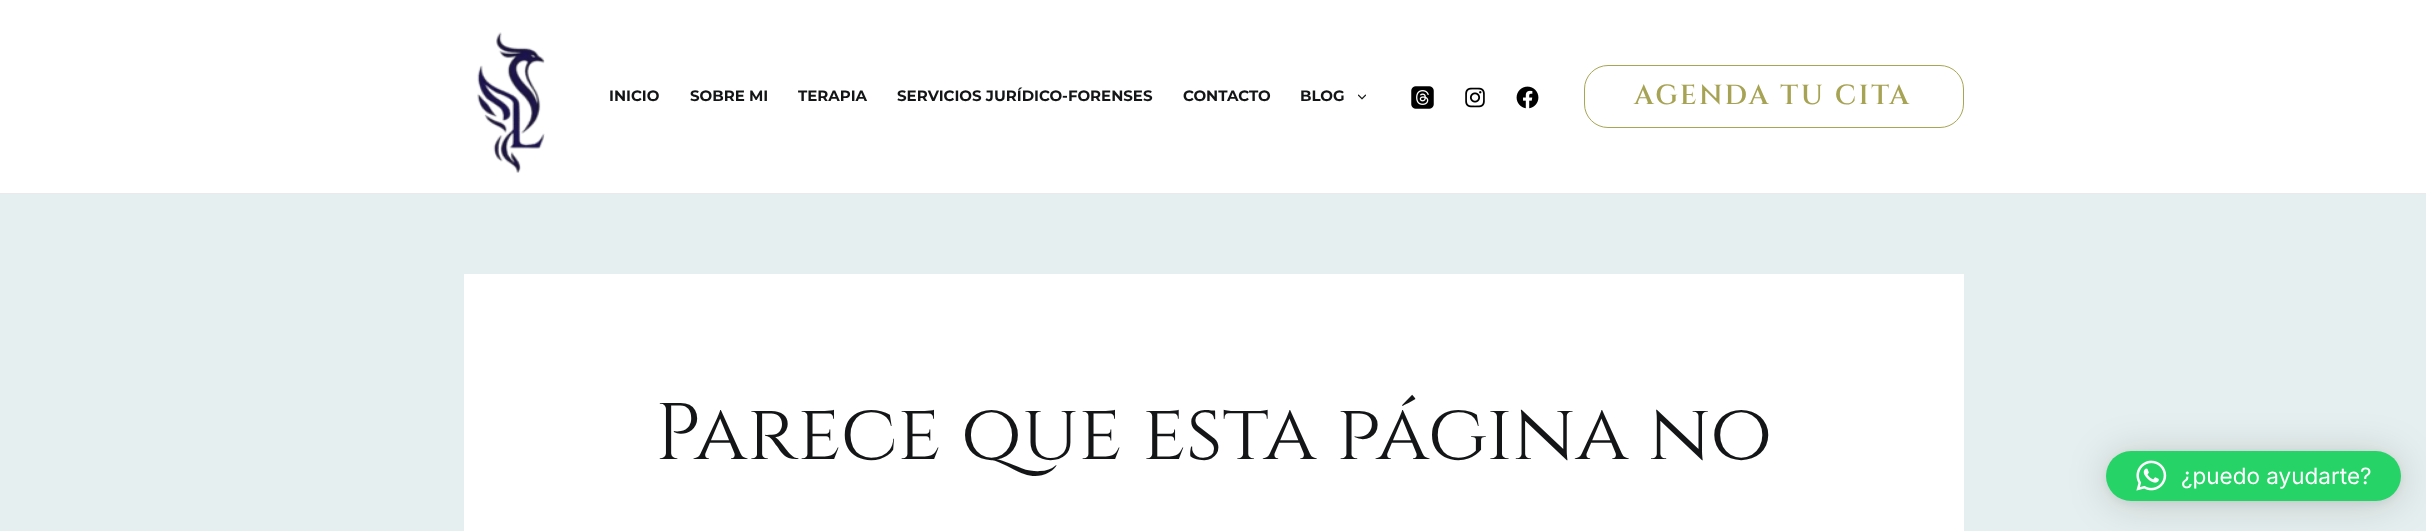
<svg xmlns="http://www.w3.org/2000/svg" width="2426" height="531">
<style>
.a{font:bold 15px Montserrat;fill:#131516}
.b{font:600 27.5px Cinzel;letter-spacing:2.5px;fill:#a7a354}
.c{font:80px Cinzel;fill:#131516}
.d{font:22.5px Inter;fill:#fff}
</style>
<rect width="100%" height="100%" fill="#e6efef"/>
<path fill="#fff" d="M0 0h2426v193H0z"/>
<path fill="#eaeaea" d="M0 193h2426v1H0z"/>
<image href="1.png" x="477" y="32" width="68" height="141"/>
<image href="2.png" x="1358" y="94" width="8" height="6"/>
<image href="3.png" x="1411" y="86" width="23" height="23"/>
<image href="4.png" x="1465" y="87" width="20" height="21"/>
<image href="5.png" x="1516" y="86" width="23" height="23"/>
<rect fill="none" stroke="#a7a654" x="1584.5" y="65.5" width="379" height="62" rx="23.5"/>
<path fill="#fff" d="M464 274h1500v257H464z"/>
<rect fill="#00000029" filter="blur(20px)" x="2106" y="454" width="295" height="50" rx="25"/>
<rect fill="#0000000f" filter="blur(4px)" x="2106" y="453" width="295" height="50" rx="25"/>
<rect fill="#25d366" x="2106" y="451" width="295" height="50" rx="25"/>
<image href="6.png" x="2136" y="460" width="31" height="31"/>
<text class="a" x="609" y="101">INICIO</text>
<text class="a" x="690" y="101">SOBRE MI</text>
<text class="a" x="798" y="101">TERAPIA</text>
<text class="a" x="897" y="101">SERVICIOS JURÍDICO-FORENSES</text>
<text class="a" x="1183" y="101">CONTACTO</text>
<text class="a" x="1300" y="101">BLOG</text>
<text class="b" x="1634" y="104">AGENDA TU CITA</text>
<text class="c" x="655" y="459">Parece que esta página no</text>
<text class="d" x="2181" y="484">¿puedo ayudarte?</text>
</svg>
